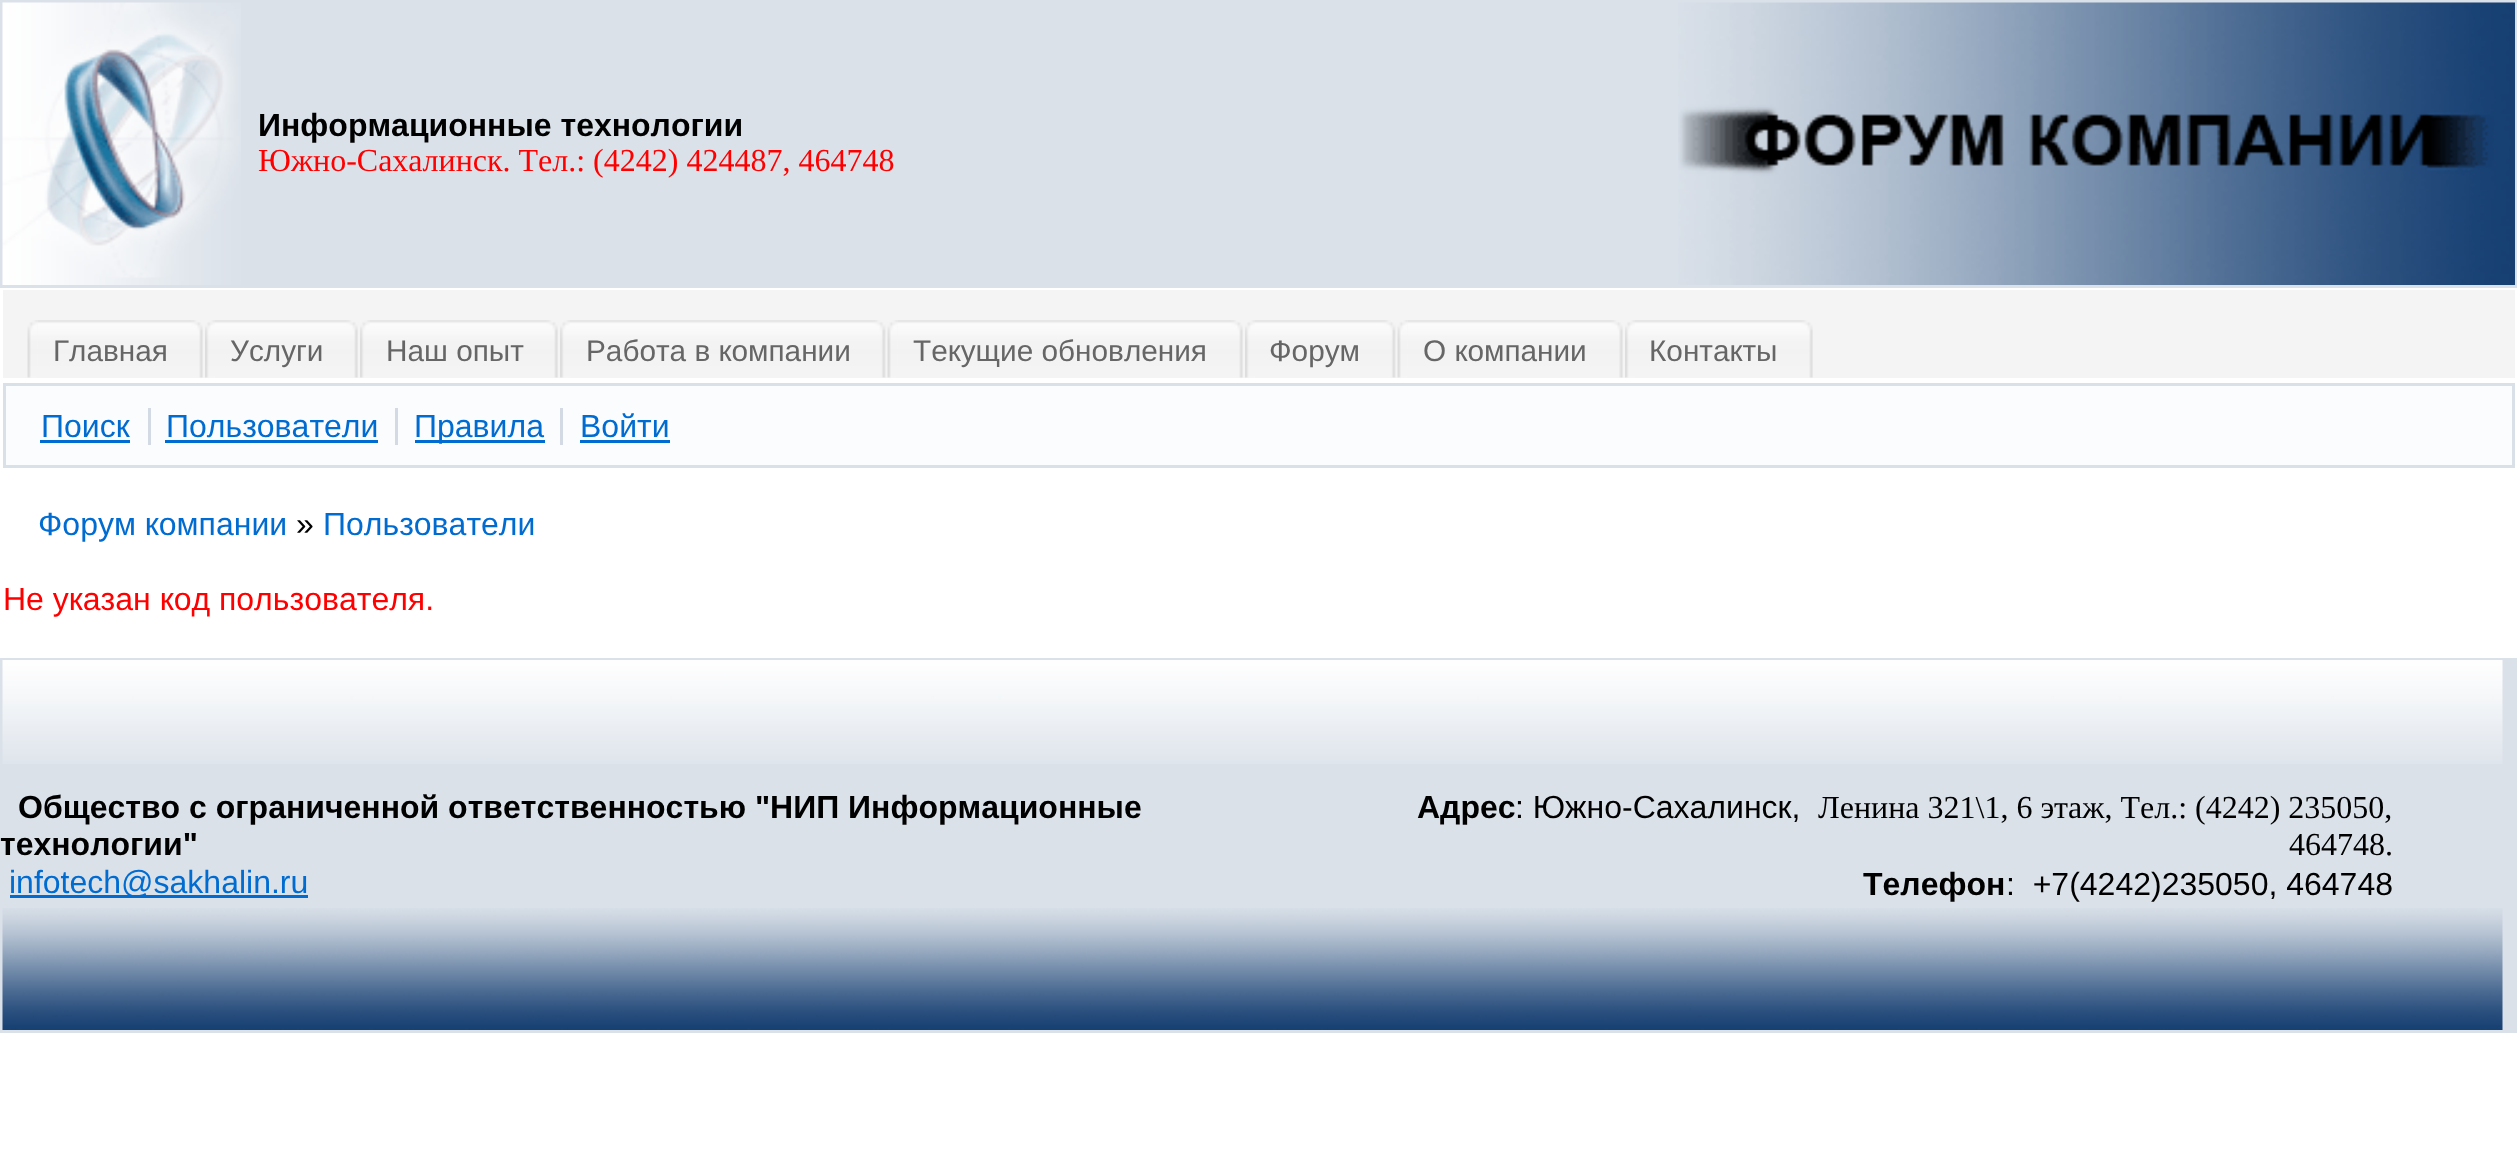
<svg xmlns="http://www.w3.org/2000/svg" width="2517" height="1175">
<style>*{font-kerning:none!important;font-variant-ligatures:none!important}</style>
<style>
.a{font:bold 32px Liberation Sans;fill:#000}
.b{font:32px Liberation Serif;fill:#f00}
.c{font:29.75px Liberation Sans;fill:#666}
.d{font:32px Liberation Sans;fill:#006cd1}
.e{font:32px Liberation Sans;fill:#000}
.f{font:32px Liberation Sans;fill:#f00}
.g{font:32px Liberation Serif;fill:#000}
</style>
<rect width="100%" height="100%" fill="#fff"/>
<path fill="#dae1e9" d="M0 0h2517v288H0z"/>
<image href="1.png" x="2" y="2" width="239" height="283"/>
<image href="2.png" x="1678" y="2" width="837" height="283"/>
<path fill="#f4f4f4" d="M3 290h2512v88H3z"/>
<image href="3.png" x="27" y="320" width="11" height="58"/>
<image href="4.png" x="37" y="320" width="166" height="58"/>
<image href="5.png" x="205" y="320" width="10" height="58"/>
<image href="6.png" x="215" y="320" width="143" height="58"/>
<image href="5.png" x="360" y="320" width="10" height="58"/>
<image href="7.png" x="370" y="320" width="188" height="58"/>
<image href="8.png" x="560" y="320" width="10" height="58"/>
<image href="9.png" x="570" y="320" width="316" height="58"/>
<image href="3.png" x="887" y="320" width="11" height="58"/>
<image href="10.png" x="897" y="320" width="346" height="58"/>
<image href="5.png" x="1245" y="320" width="10" height="58"/>
<image href="11.png" x="1255" y="320" width="141" height="58"/>
<image href="3.png" x="1397" y="320" width="11" height="58"/>
<image href="12.png" x="1407" y="320" width="216" height="58"/>
<image href="5.png" x="1625" y="320" width="10" height="58"/>
<image href="13.png" x="1635" y="320" width="178" height="58"/>
<path fill="#fbfcfd" stroke="#dae0e7" stroke-width="3" d="M4.5 384.5h2509v82H4.5z"/>
<path fill="#d4dae3" d="M148 408h3v37H148z"/>
<path fill="#006cd1" d="M40 440h90v3H40z"/>
<path fill="#d4dae3" d="M395 408h3v37H395z"/>
<path fill="#006cd1" d="M165 440h213v3H165z"/>
<path fill="#d4dae3" d="M560 408h3v37H560z"/>
<path fill="#006cd1" d="M415 440h130v3H415z"/>
<path fill="#006cd1" d="M580 440h90v3H580z"/>
<path fill="#dae1e9" d="M0 658h2517v375H0z"/>
<image href="14.png" x="2" y="660" width="2501" height="104"/>
<path fill="#006cd1" d="M10 895h298v3H10z"/>
<image href="15.png" x="2" y="908" width="2501" height="122"/>
<text class="a" x="258" y="136">Информационные технологии</text>
<text class="b" x="258" y="171">Южно-Сахалинск. Тел.: (4242) 424487, 464748</text>
<text class="c" x="53" y="361">Главная</text>
<text class="c" x="230" y="361">Услуги</text>
<text class="c" x="386" y="361">Наш опыт</text>
<text class="c" x="586" y="361">Работа в компании</text>
<text class="c" x="913" y="361">Текущие обновления</text>
<text class="c" x="1269" y="361">Форум</text>
<text class="c" x="1423" y="361">О компании</text>
<text class="c" x="1649" y="361">Контакты</text>
<text class="d" x="41" y="437">Поиск</text>
<text class="d" x="166" y="437">Пользователи</text>
<text class="d" x="414" y="437">Правила</text>
<text class="d" x="580" y="437">Войти</text>
<text class="d" x="38" y="535">Форум компании</text>
<text class="e" x="296" y="535">»</text>
<text class="d" x="323" y="535">Пользователи</text>
<text class="f" x="3" y="610">Не указан код пользователя.</text>
<text class="a" x="18" y="818">Общество с ограниченной ответственностью "НИП Информационные</text>
<text class="a" x="0" y="855">технологии"</text>
<text class="d" x="9" y="893">infotech@sakhalin.ru</text>
<text class="a" x="1417" y="818">Адрес</text>
<text class="e" x="1515" y="818">:  Южно-Сахалинск,</text>
<text class="g" x="1818" y="818">Ленина 321\1, 6 этаж, Тел.: (4242) 235050,</text>
<text class="g" x="2289" y="855">464748.</text>
<text class="a" x="1863" y="895">Телефон</text>
<text class="e" xml:space="preserve" x="2006" y="895">:  +7(4242)235050, 464748</text>
</svg>
